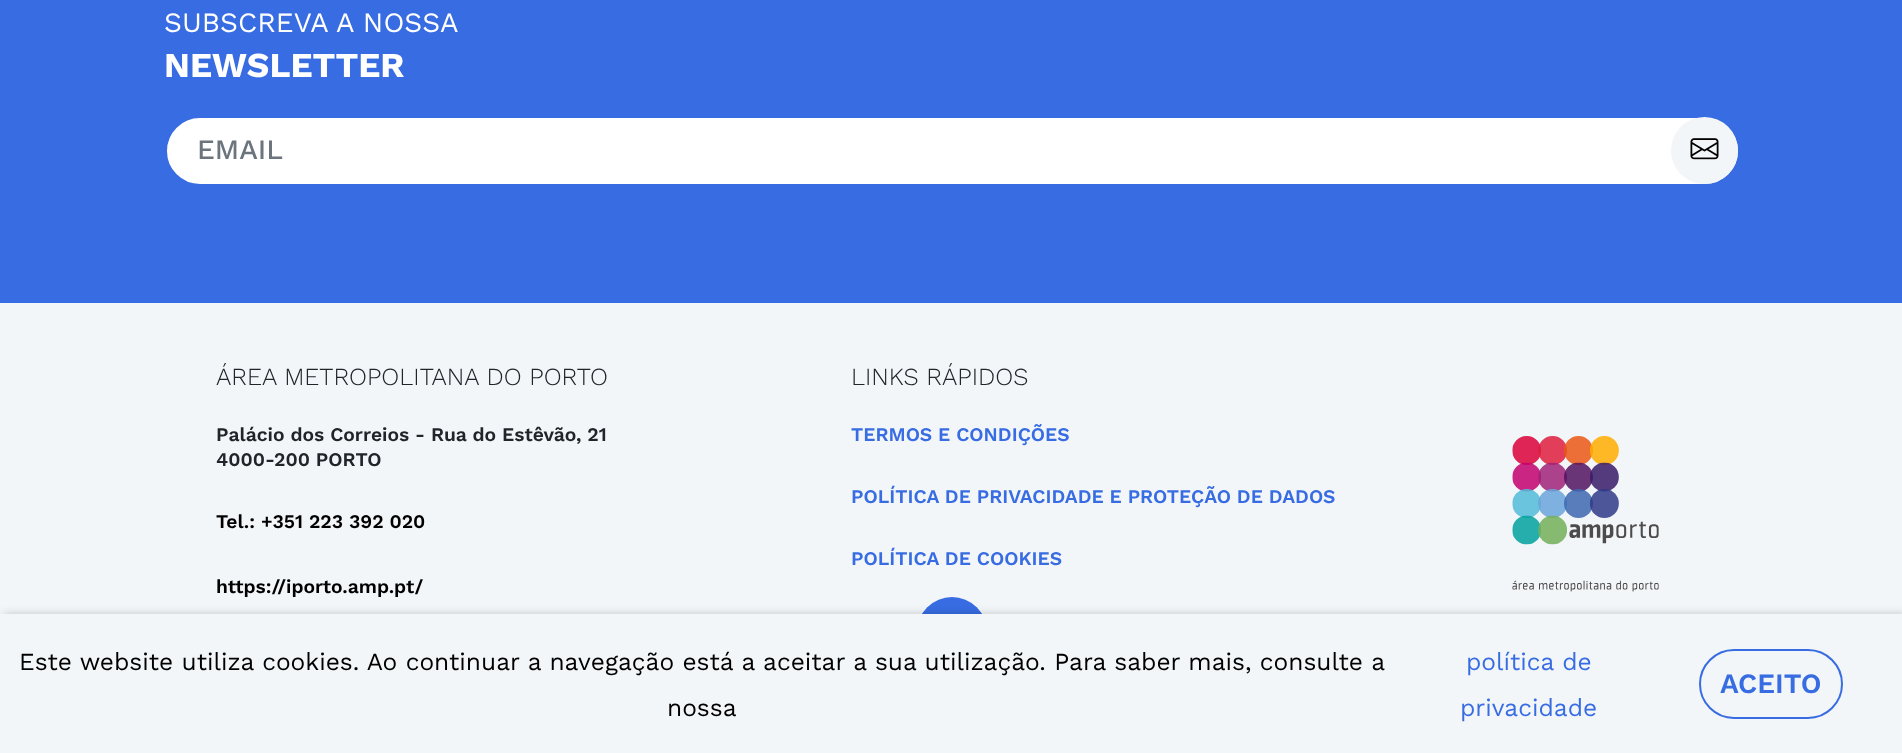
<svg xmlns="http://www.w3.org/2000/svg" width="1902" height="753">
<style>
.a{font:28px Work Sans;fill:#fff}
.b{font:bold 35px Work Sans;fill:#fff}
.c{font:500 28px Work Sans;fill:#6c757d}
.d{font:300 24.5px Work Sans;fill:#212529}
.e{font:600 19.25px Work Sans;fill:#212529}
.f{font:600 19.25px Work Sans;fill:#000}
.g{font:600 19.25px Work Sans;fill:#386ce2}
.h{font:24.5px Work Sans;fill:#000}
.i{font:24.5px Work Sans;fill:#386ce2}
.j{font:600 28px Work Sans;fill:#386ce2}
</style>
<rect width="100%" height="100%" fill="#386ce2"/>
<rect fill="#fff" stroke="#386ce2" stroke-width="2" x="166" y="117" width="1573" height="68" rx="34"/>
<circle fill="#f3f6f9" cx="1704.5" cy="150.5" r="33.5"/>
<image href="1.png" x="1690" y="138" width="29" height="22"/>
<path fill="#f3f6f9" d="M0 303h1902v311H0z"/>
<image href="2.png" x="1512" y="436" width="147" height="156"/>
<circle fill="#386ce2" cx="952" cy="632" r="35"/>
<path fill="#00000033" filter="blur(4.5px)" d="M4 614h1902v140H4z"/>
<path fill="#f3f6f9" d="M0 614h1902v139H0z"/>
<rect fill="none" stroke="#386ce2" stroke-width="2" x="1700" y="650" width="142" height="68" rx="34"/>
<text class="a" x="164" y="32">SUBSCREVA A NOSSA</text>
<text class="b" x="164" y="77">NEWSLETTER</text>
<text class="c" x="197" y="159">EMAIL</text>
<text class="d" x="216" y="385">ÁREA METROPOLITANA DO PORTO</text>
<text class="e" x="216" y="441">Palácio dos Correios - Rua do Estêvão, 21</text>
<text class="e" x="216" y="466">4000-200 PORTO</text>
<text class="f" x="216" y="528">Tel.: +351 223 392 020</text>
<text class="f" x="216" y="593">https://iporto.amp.pt/</text>
<text class="d" x="851" y="385">LINKS RÁPIDOS</text>
<text class="g" x="851" y="441">TERMOS E CONDIÇÕES</text>
<text class="g" x="851" y="503">POLÍTICA DE PRIVACIDADE E PROTEÇÃO DE DADOS</text>
<text class="g" x="851" y="565">POLÍTICA DE COOKIES</text>
<text class="h" x="19" y="670">Este website utiliza cookies. Ao continuar a navegação está a aceitar a sua utilização. Para saber mais, consulte a</text>
<text class="h" x="667" y="716">nossa</text>
<text class="i" x="1466" y="670">política de</text>
<text class="i" x="1460" y="716">privacidade</text>
<text class="j" x="1720" y="693">ACEITO</text>
</svg>
